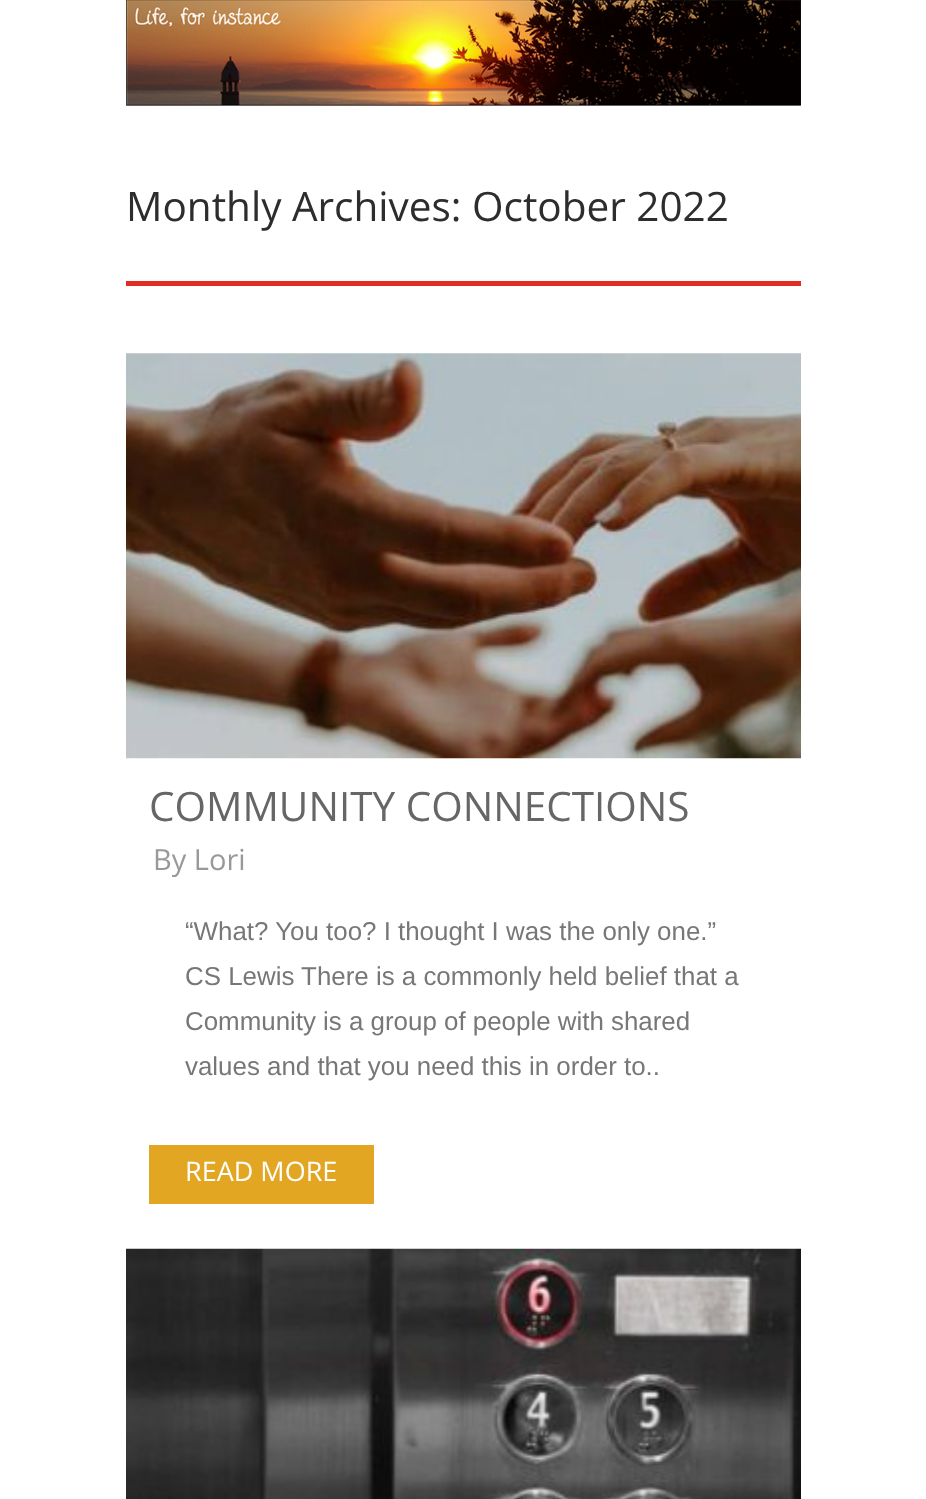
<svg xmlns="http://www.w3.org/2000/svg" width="926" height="1499">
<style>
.a{font:40.5px Open Sans;fill:#2e2d2d}
.b{font:40.5px Open Sans;fill:#666}
.c{font:29px Open Sans;fill:#999}
.d{font:25.9px Liberation Sans;fill:#777}
.e{font:27px Open Sans;fill:#fff}
</style>
<rect width="100%" height="100%" fill="#fff"/>
<image href="1.png" x="126" y="0" width="675" height="106"/>
<path fill="#e32b23" d="M126 281h675v5H126z"/>
<image href="2.png" x="126" y="353" width="675" height="406"/>
<path fill="#e3a622" d="M149 1145h225v59H149z"/>
<image href="3.png" x="126" y="1248" width="675" height="251"/>
<text class="a" x="126" y="221">Monthly Archives: October 2022</text>
<text class="b" x="149" y="821">COMMUNITY CONNECTIONS</text>
<text class="c" x="153" y="870">By Lori</text>
<text class="d" x="185" y="940">“What? You too? I thought I was the only one.”</text>
<text class="d" x="185" y="985">CS Lewis There is a commonly held belief that a</text>
<text class="d" x="185" y="1030">Community is a group of people with shared</text>
<text class="d" x="185" y="1075">values and that you need this in order to..</text>
<text class="e" x="185" y="1181">READ MORE</text>
</svg>
